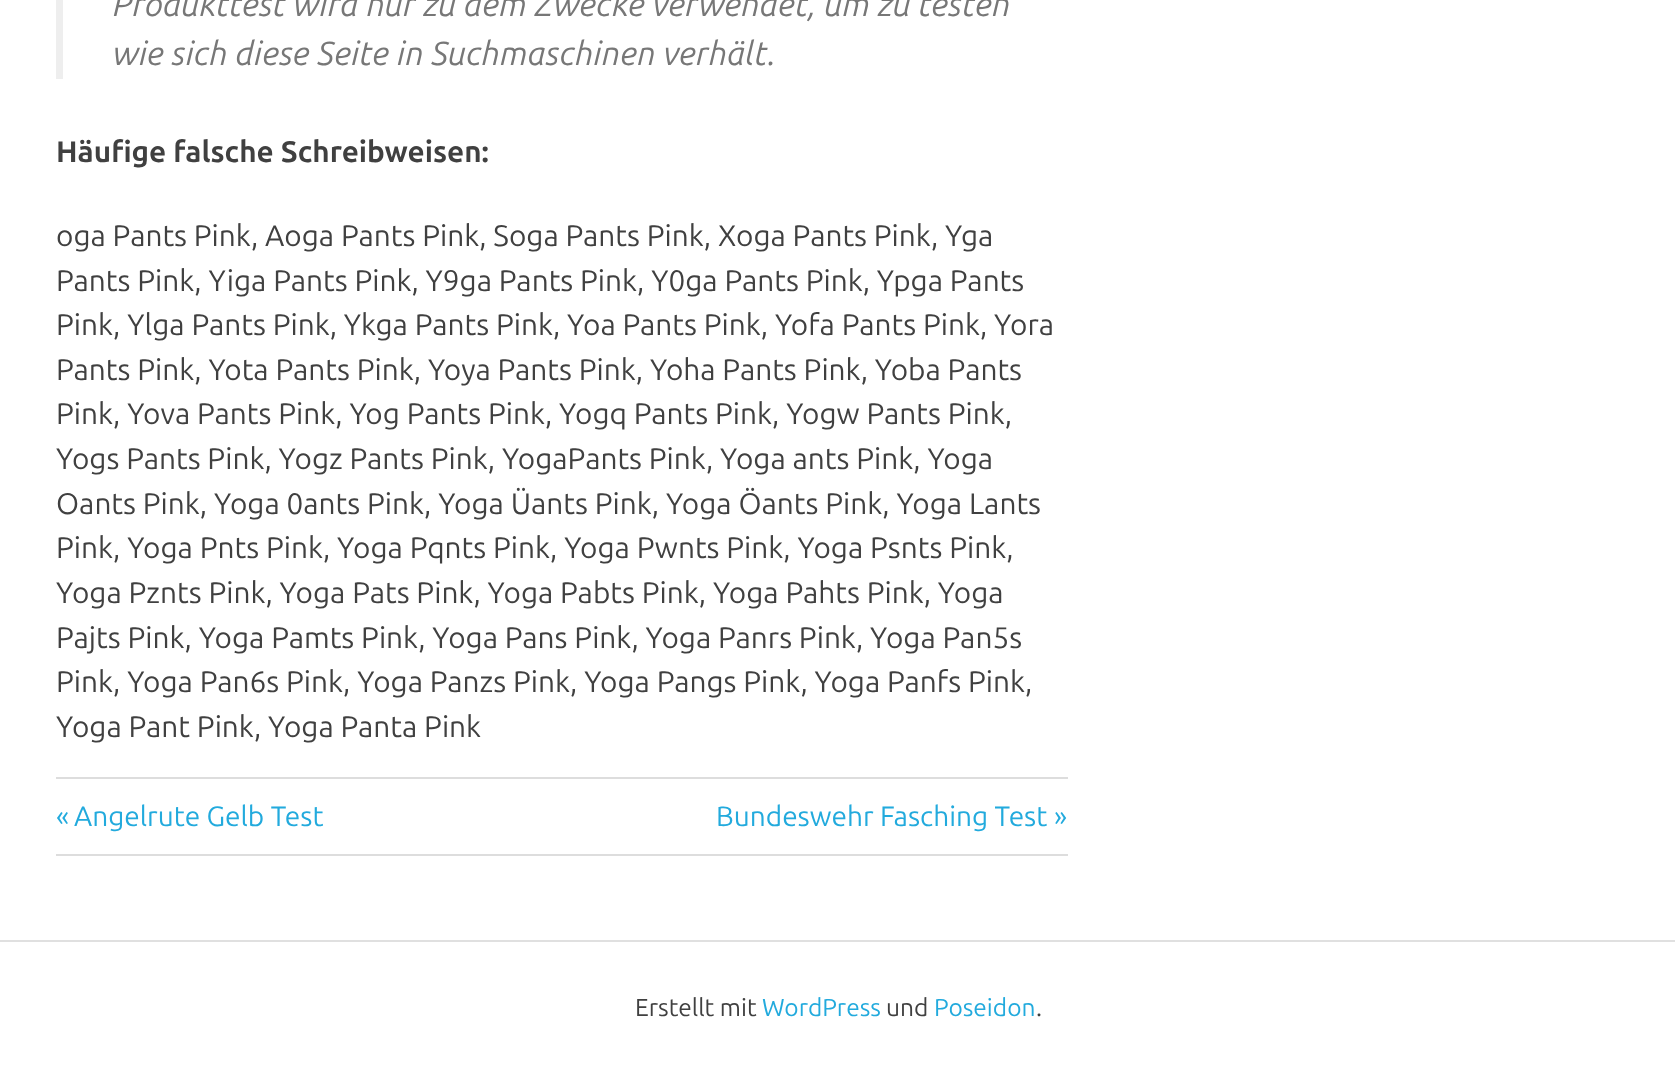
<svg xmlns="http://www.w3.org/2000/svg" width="1675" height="1075">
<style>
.a{font:italic 33.25px Ubuntu;fill:#777}
.b{font:bold 29.75px Ubuntu;fill:#404040}
.c{font:29.75px Ubuntu;fill:#404040}
.d{font:28px Ubuntu;fill:#2ad}
.e{font:24.5px Ubuntu;fill:#404040}
.f{font:24.5px Ubuntu;fill:#2ad}
</style>
<rect width="100%" height="100%" fill="#fff"/>
<path fill="#eee" d="M56 0h7v79H56z"/>
<path fill="#ddd" d="M56 777h1012v2H56z"/>
<path fill="#ddd" d="M56 854h1012v2H56z"/>
<path fill="#e0e0e0" d="M0 940h1675v2H0z"/>
<text class="a" x="113" y="16">Produkttest wird nur zu dem Zwecke verwendet, um zu testen</text>
<text class="a" x="113" y="65">wie sich diese Seite in Suchmaschinen verhält.</text>
<text class="b" x="56" y="162">Häufige falsche Schreibweisen:</text>
<text class="c" x="56" y="246">oga Pants Pink, Aoga Pants Pink, Soga Pants Pink, Xoga Pants Pink, Yga</text>
<text class="c" x="56" y="291">Pants Pink, Yiga Pants Pink, Y9ga Pants Pink, Y0ga Pants Pink, Ypga Pants</text>
<text class="c" x="56" y="335">Pink, Ylga Pants Pink, Ykga Pants Pink, Yoa Pants Pink, Yofa Pants Pink, Yora</text>
<text class="c" x="56" y="380">Pants Pink, Yota Pants Pink, Yoya Pants Pink, Yoha Pants Pink, Yoba Pants</text>
<text class="c" x="56" y="424">Pink, Yova Pants Pink, Yog Pants Pink, Yogq Pants Pink, Yogw Pants Pink,</text>
<text class="c" x="56" y="469">Yogs Pants Pink, Yogz Pants Pink, YogaPants Pink, Yoga ants Pink, Yoga</text>
<text class="c" x="56" y="514">Oants Pink, Yoga 0ants Pink, Yoga Üants Pink, Yoga Öants Pink, Yoga Lants</text>
<text class="c" x="56" y="558">Pink, Yoga Pnts Pink, Yoga Pqnts Pink, Yoga Pwnts Pink, Yoga Psnts Pink,</text>
<text class="c" x="56" y="603">Yoga Pznts Pink, Yoga Pats Pink, Yoga Pabts Pink, Yoga Pahts Pink, Yoga</text>
<text class="c" x="56" y="648">Pajts Pink, Yoga Pamts Pink, Yoga Pans Pink, Yoga Panrs Pink, Yoga Pan5s</text>
<text class="c" x="56" y="692">Pink, Yoga Pan6s Pink, Yoga Panzs Pink, Yoga Pangs Pink, Yoga Panfs Pink,</text>
<text class="c" x="56" y="737">Yoga Pant Pink, Yoga Panta Pink</text>
<text class="d" x="56" y="826">«</text>
<text class="d" x="74" y="826">Angelrute Gelb Test</text>
<text class="d" x="716" y="826">Bundeswehr Fasching Test</text>
<text class="d" x="1054" y="826">»</text>
<text class="e" x="635" y="1016">Erstellt mit</text>
<text class="f" x="762" y="1016">WordPress</text>
<text class="e" x="886" y="1016">und</text>
<text class="f" x="934" y="1016">Poseidon</text>
<text class="e" x="1036" y="1016">.</text>
</svg>
